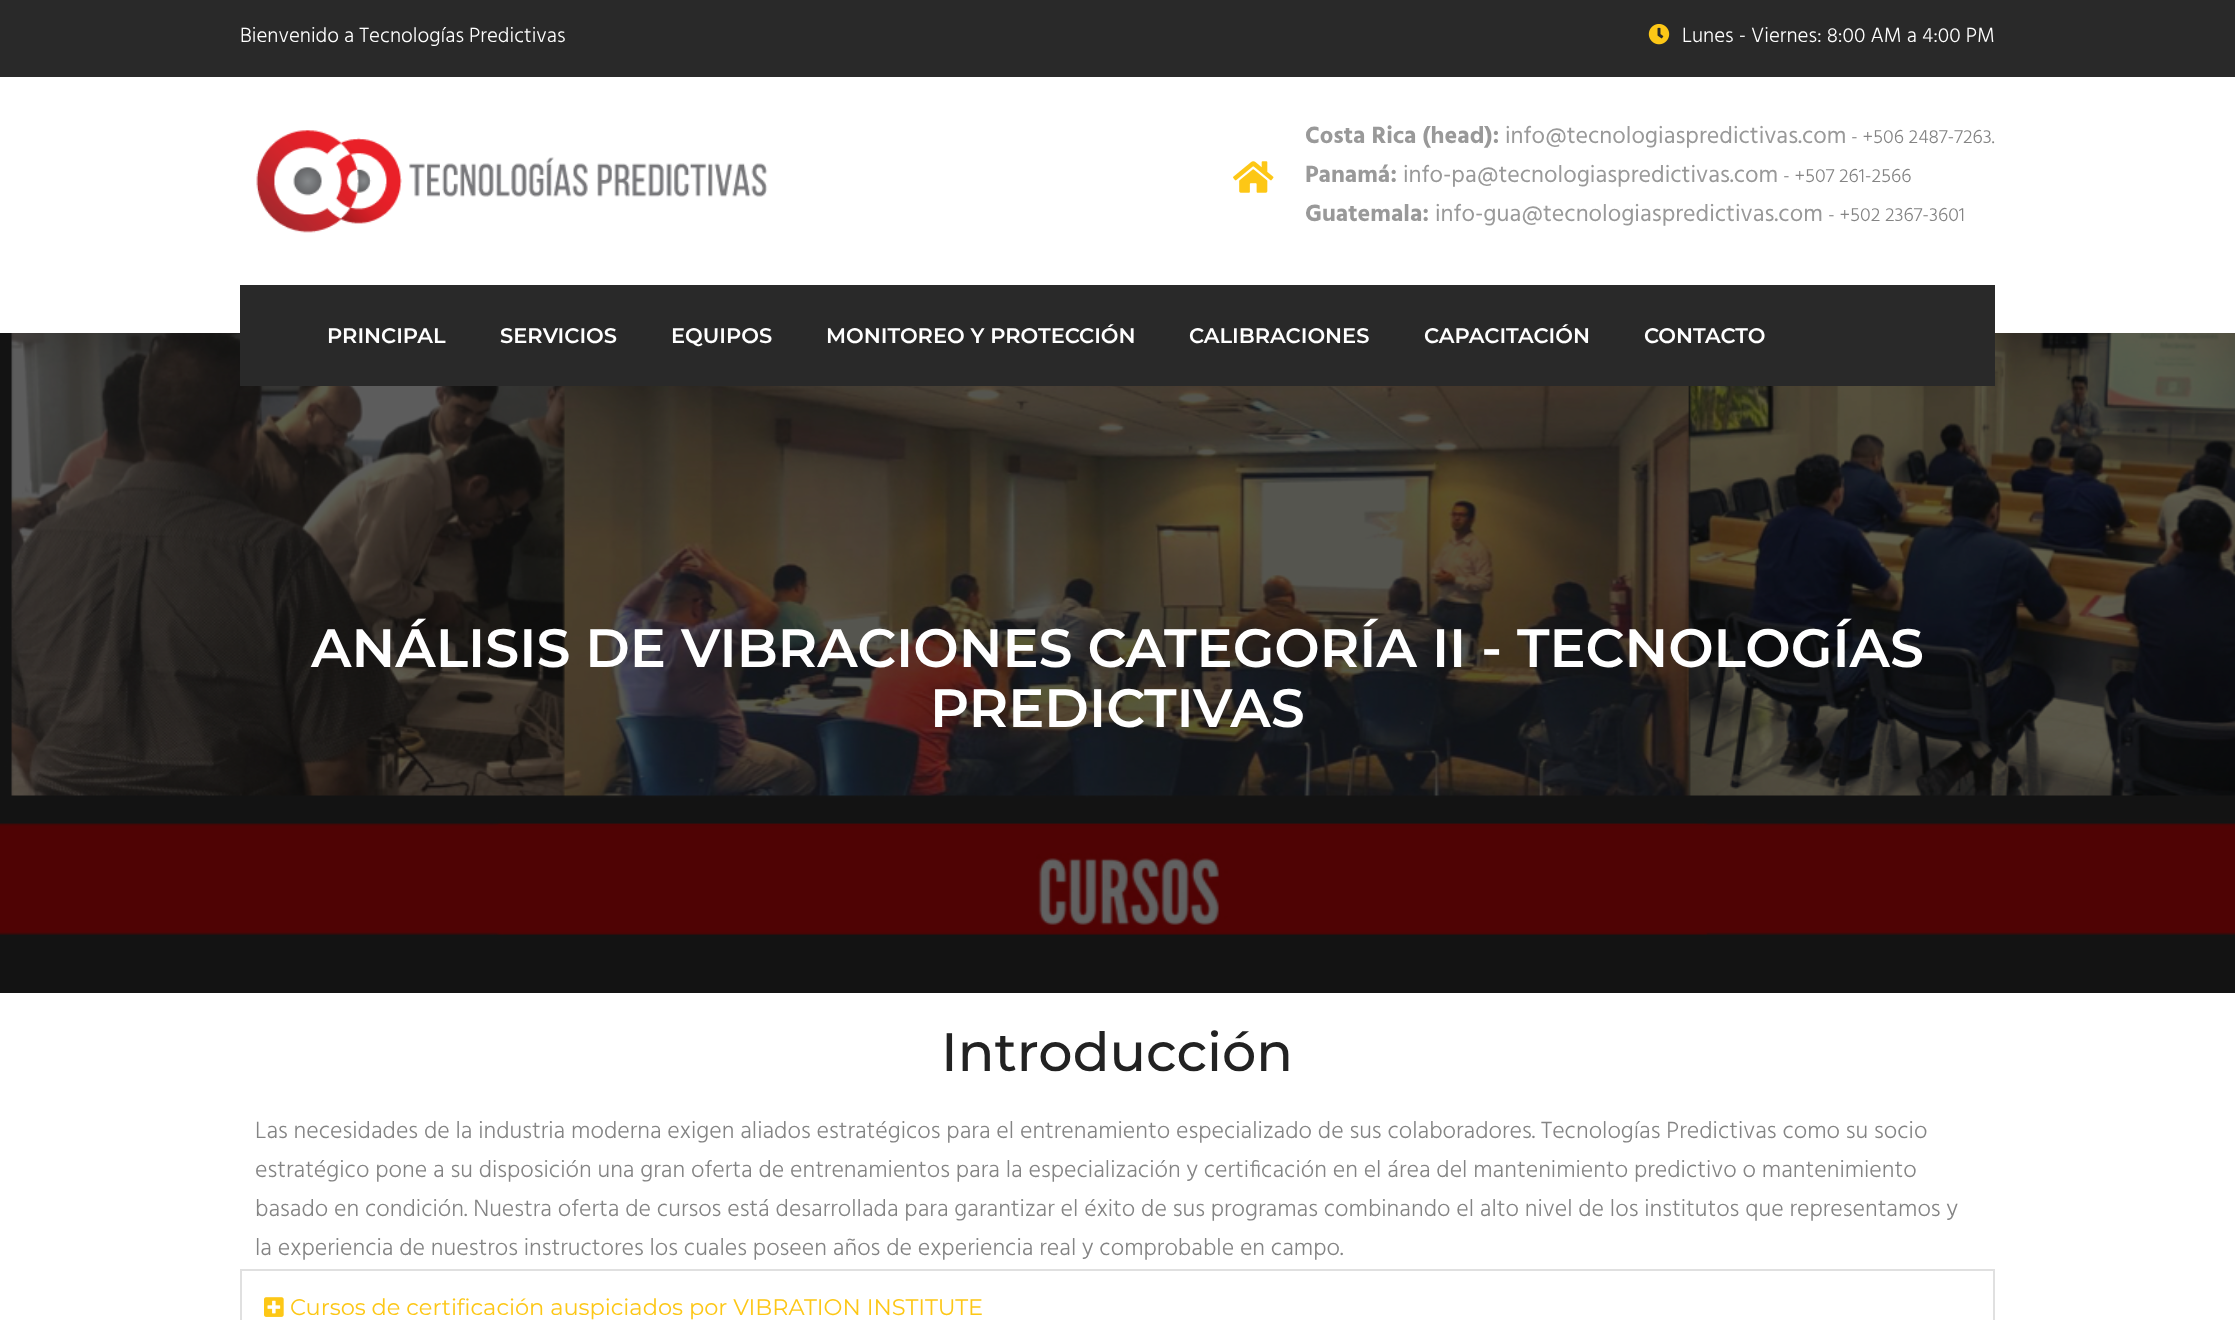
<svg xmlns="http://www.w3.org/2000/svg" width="2235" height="1320">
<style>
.a{font:300 21px Hind;fill:#fff}
.b{font:bold 24px Hind;fill:#999}
.c{font:24px Hind;fill:#999}
.d{font:300 19.5px Hind;fill:#848484}
.e{font:600 21px Montserrat;fill:#fff}
.f{font:600 54px Montserrat;fill:#fff}
.g{font:500 54px Montserrat;fill:#222}
.h{font:300 24px Hind;fill:#848484}
.i{font:22.5px Montserrat;fill:#fdc716}
</style>
<rect width="100%" height="100%" fill="#fff"/>
<path fill="#292929" d="M0 0h2235v77H0z"/>
<image href="1.png" x="1648" y="24" width="22" height="21"/>
<image href="2.png" x="256" y="130" width="512" height="103"/>
<image href="3.png" x="1233" y="161" width="41" height="32"/>
<image href="4.png" x="0" y="333" width="2235" height="660"/>
<path fill="#292929" d="M240 285h1755v101H240z"/>
<path fill="none" stroke="#e0e0e0" stroke-width="2" d="M241 1270h1753v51H241z"/>
<image href="5.png" x="264" y="1297" width="20" height="20"/>
<text class="a" x="240" y="42">Bienvenido a Tecnologías Predictivas</text>
<text class="a" x="1682" y="42">Lunes - Viernes: 8:00 AM a 4:00 PM</text>
<text class="b" x="1305" y="143">Costa Rica (head):</text>
<text class="c" x="1505" y="143">info@tecnologiaspredictivas.com</text>
<text class="d" x="1851" y="143">- +506 2487-7263.</text>
<text class="b" x="1305" y="182">Panamá:</text>
<text class="c" x="1403" y="182">info-pa@tecnologiaspredictivas.com</text>
<text class="d" x="1783" y="182">- +507 261-2566</text>
<text class="b" x="1305" y="221">Guatemala:</text>
<text class="c" x="1435" y="221">info-gua@tecnologiaspredictivas.com</text>
<text class="d" x="1828" y="221">- +502 2367-3601</text>
<text class="e" x="327" y="343">PRINCIPAL</text>
<text class="e" x="500" y="343">SERVICIOS</text>
<text class="e" x="671" y="343">EQUIPOS</text>
<text class="e" x="826" y="343">MONITOREO Y PROTECCIÓN</text>
<text class="e" x="1189" y="343">CALIBRACIONES</text>
<text class="e" x="1424" y="343">CAPACITACIÓN</text>
<text class="e" x="1644" y="343">CONTACTO</text>
<text class="f" x="311" y="667">ANÁLISIS DE VIBRACIONES CATEGORÍA II - TECNOLOGÍAS</text>
<text class="f" x="930" y="727">PREDICTIVAS</text>
<text class="g" x="941" y="1071">Introducción</text>
<text class="h" x="255" y="1138">Las necesidades de la industria moderna exigen aliados estratégicos para el entrenamiento especializado de sus colaboradores. Tecnologías Predictivas como su socio</text>
<text class="h" x="255" y="1177">estratégico pone a su disposición una gran oferta de entrenamientos para la especialización y certificación en el área del mantenimiento predictivo o mantenimiento</text>
<text class="h" x="255" y="1216">basado en condición. Nuestra oferta de cursos está desarrollada para garantizar el éxito de sus programas combinando el alto nivel de los institutos que representamos y</text>
<text class="h" x="255" y="1255">la experiencia de nuestros instructores los cuales poseen años de experiencia real y comprobable en campo.</text>
<text class="i" x="290" y="1315">Cursos de certificación auspiciados por VIBRATION INSTITUTE</text>
</svg>
